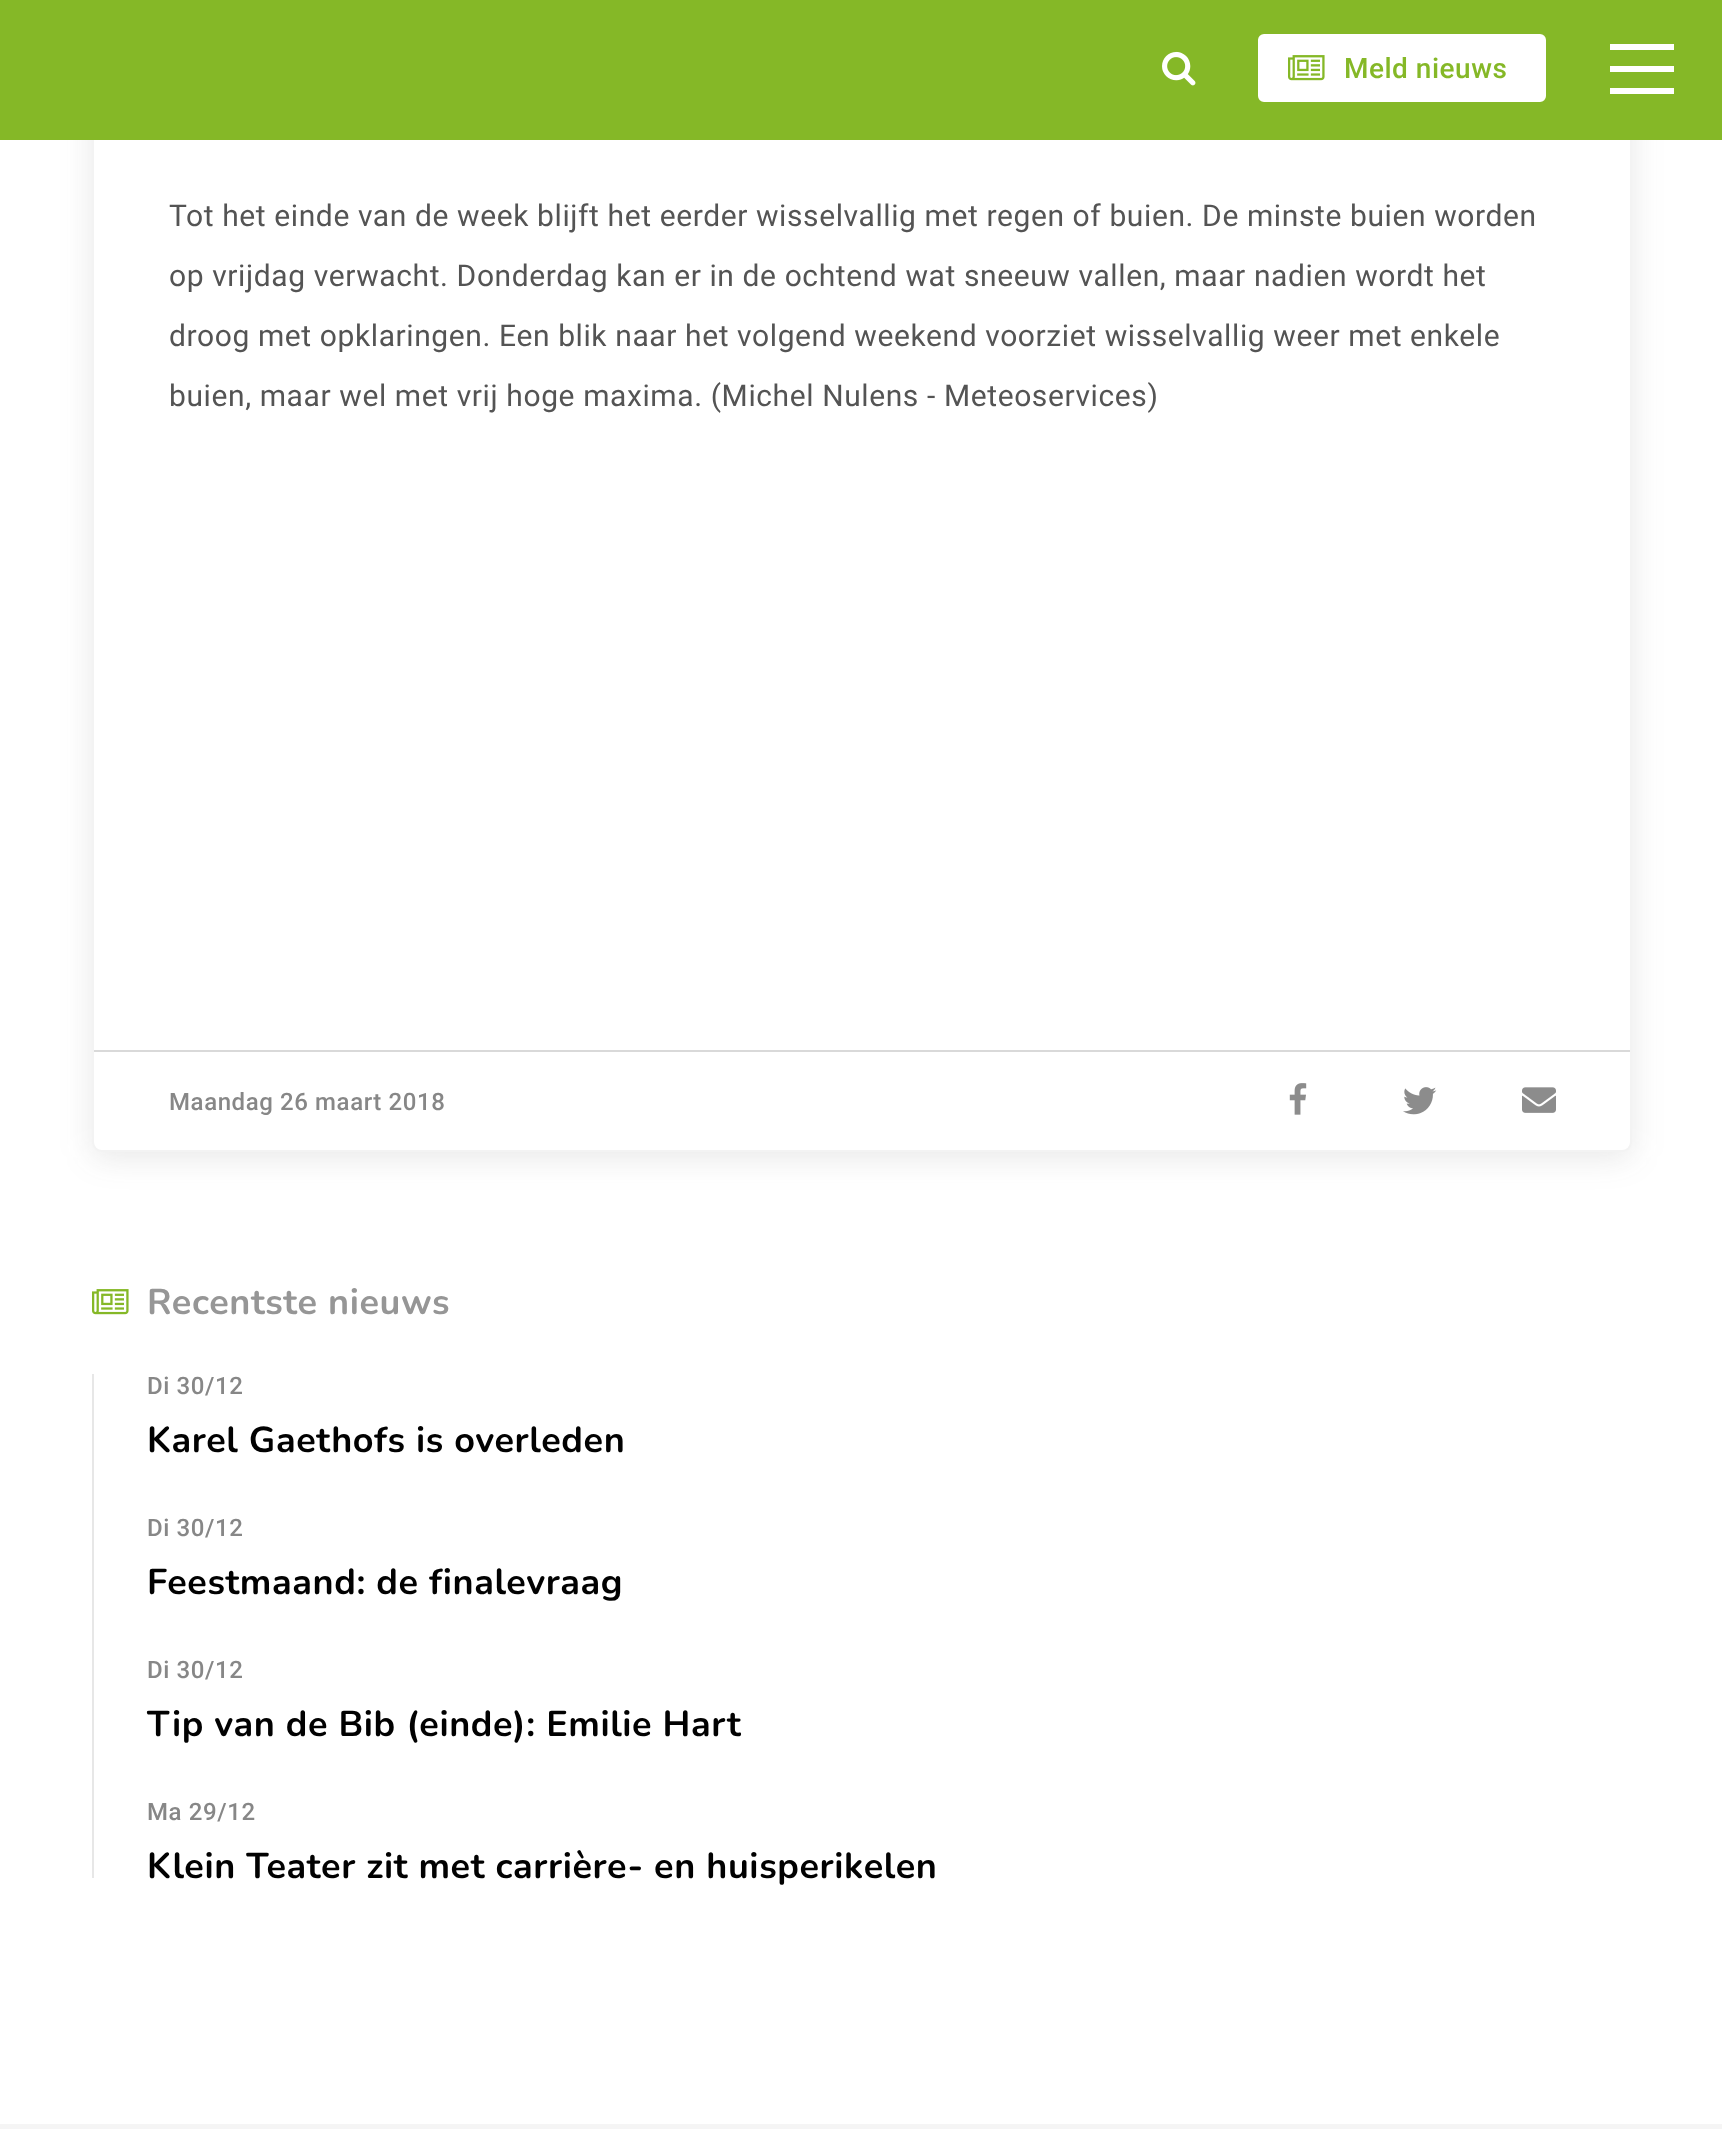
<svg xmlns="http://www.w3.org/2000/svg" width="1722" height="2129">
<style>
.a{font:500 28px Roboto;letter-spacing:0.5px;fill:#85b827}
.b{font:30px Roboto;letter-spacing:0.6px;fill:#545454}
.c{font:500 24px Roboto;letter-spacing:0.6px;fill:#878787}
.d{font:bold 36px Nunito;letter-spacing:0.6px;fill:#969696}
.e{font:bold 36px Nunito;letter-spacing:0.6px;fill:#010101}
</style>
<rect width="100%" height="100%" fill="#fff"/>
<rect fill="#3f3f3f1f" filter="blur(16px)" x="92" y="-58" width="1540" height="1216" rx="10"/>
<rect fill="#fff" stroke="#f3f3f3" stroke-width="2" x="93" y="-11" width="1538" height="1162" rx="9"/>
<path fill="#85b827" d="M0 0h1722v140H0z"/>
<image href="1.png" x="1162" y="51" width="34" height="35"/>
<rect fill="#fff" stroke="#fff" stroke-width="4" x="1260" y="36" width="284" height="64" rx="4"/>
<image href="2.png" x="1288" y="55" width="37" height="26"/>
<path fill="#fff" d="M1610 44h64v6H1610z"/>
<path fill="#fff" d="M1610 66h64v6H1610z"/>
<path fill="#fff" d="M1610 88h64v6H1610z"/>
<path fill="#d9d9d9" d="M94 1050h1536v2H94z"/>
<image href="3.png" x="1289" y="1083" width="18" height="32"/>
<image href="4.png" x="1403" y="1087" width="34" height="28"/>
<image href="5.png" x="1522" y="1087" width="34" height="26"/>
<image href="2.png" x="92" y="1289" width="37" height="26"/>
<path fill="#e7e7e7" d="M92 1374h2v504H92z"/>
<path fill="#f5f5f5" d="M0 2124h1722v5H0z"/>
<text class="a" x="1344" y="78">Meld nieuws</text>
<text class="b" x="169" y="226">Tot het einde van de week blijft het eerder wisselvallig met regen of buien. De minste buien worden</text>
<text class="b" x="169" y="286">op vrijdag verwacht. Donderdag kan er in de ochtend wat sneeuw vallen, maar nadien wordt het</text>
<text class="b" x="169" y="346">droog met opklaringen. Een blik naar het volgend weekend voorziet wisselvallig weer met enkele</text>
<text class="b" x="169" y="406">buien, maar wel met vrij hoge maxima. (Michel Nulens - Meteoservices)</text>
<text class="c" x="169" y="1110">Maandag 26 maart 2018</text>
<text class="d" x="147" y="1314">Recentste nieuws</text>
<text class="c" x="147" y="1394">Di 30/12</text>
<text class="e" x="147" y="1452">Karel Gaethofs is overleden</text>
<text class="c" x="147" y="1536">Di 30/12</text>
<text class="e" x="147" y="1594">Feestmaand: de finalevraag</text>
<text class="c" x="147" y="1678">Di 30/12</text>
<text class="e" x="147" y="1736">Tip van de Bib (einde): Emilie Hart</text>
<text class="c" x="147" y="1820">Ma 29/12</text>
<text class="e" x="147" y="1878">Klein Teater zit met carrière- en huisperikelen</text>
</svg>
